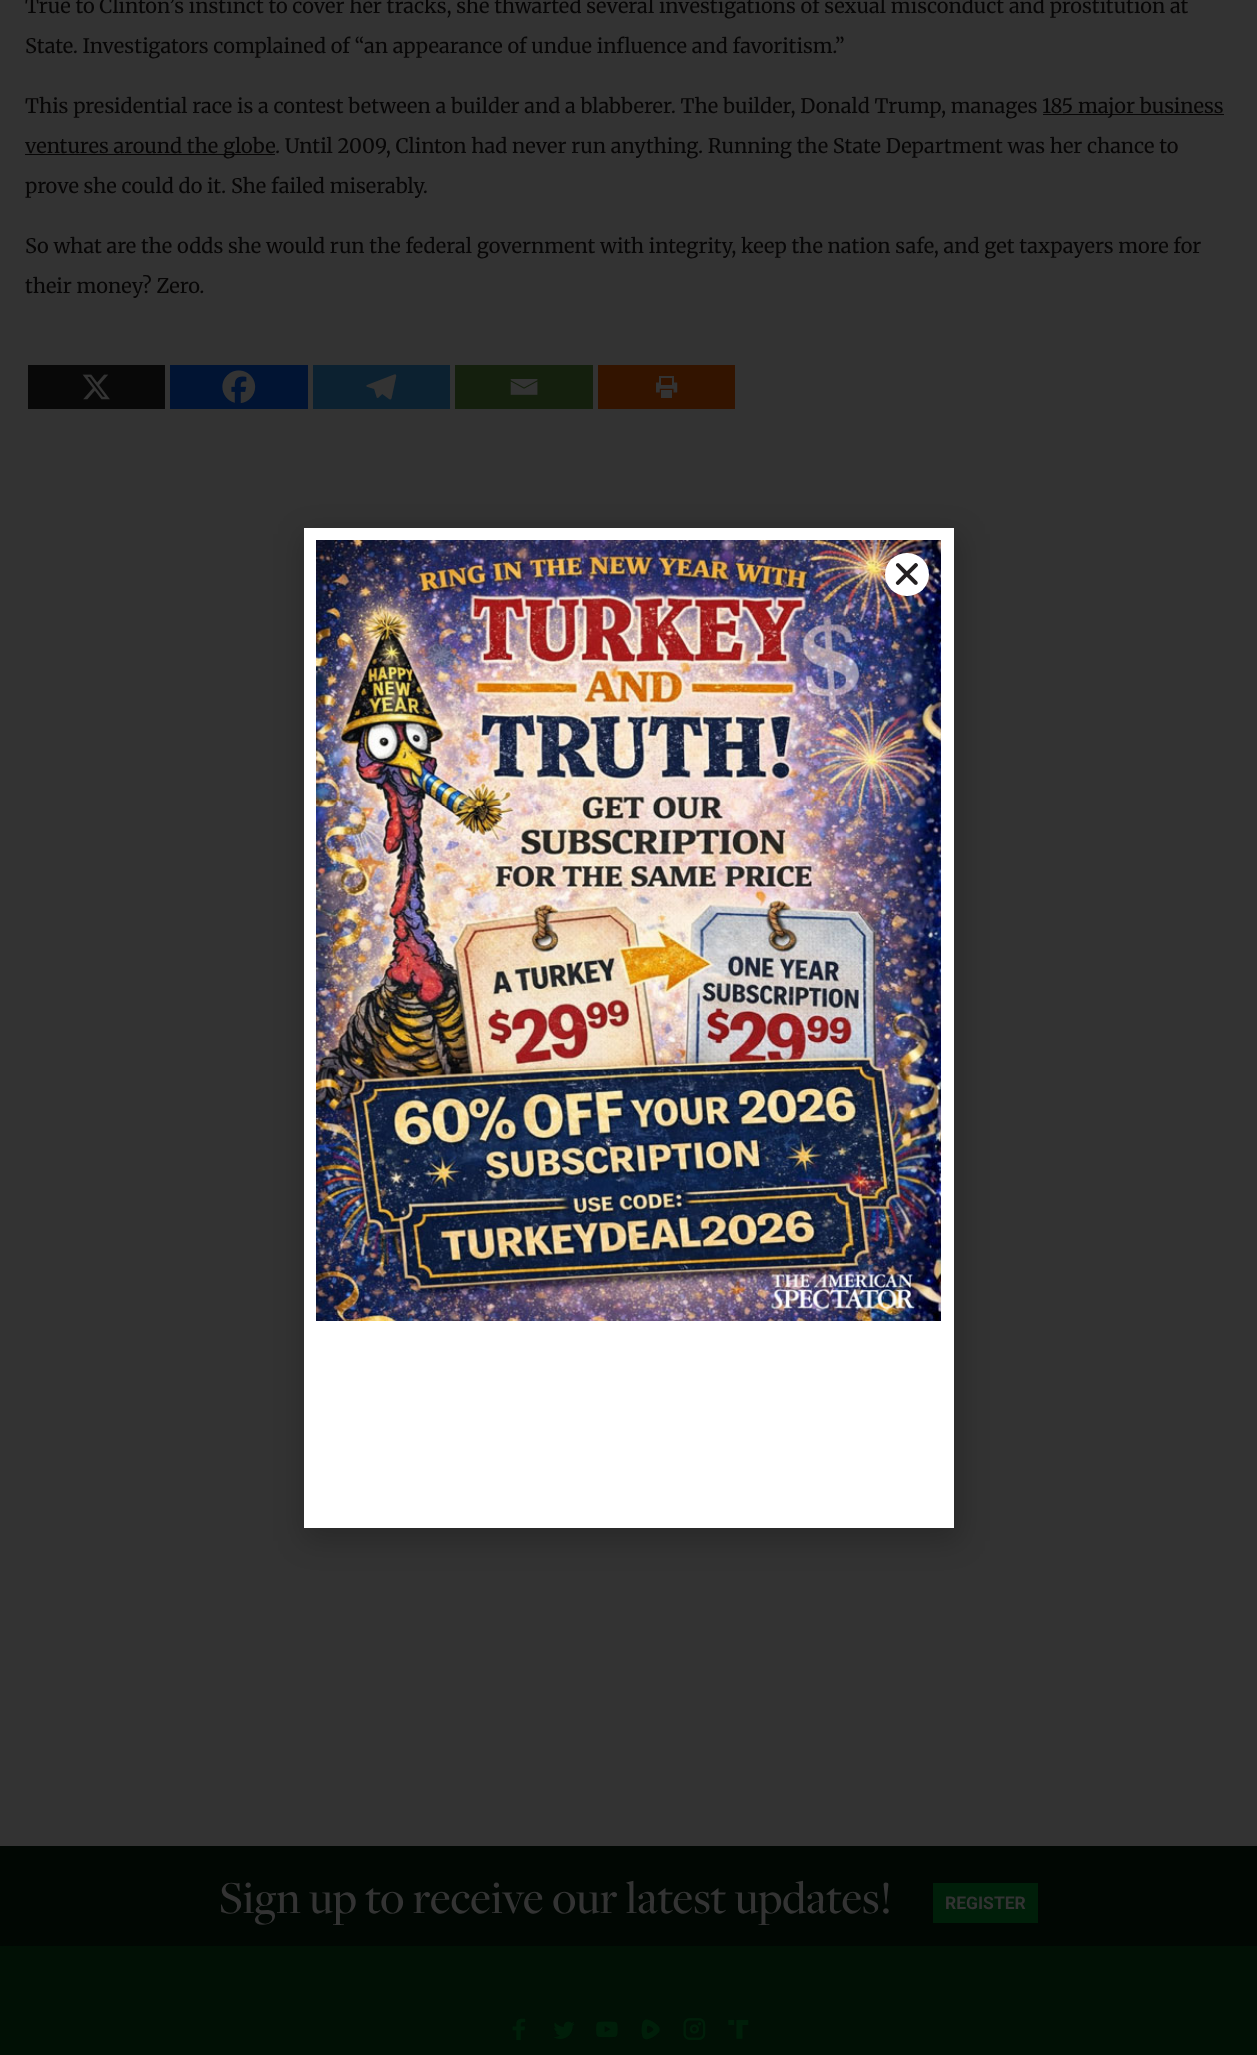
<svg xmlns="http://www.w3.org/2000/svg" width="1257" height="2055">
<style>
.a{font:20px Merriweather;fill:#070606}
.b{font:500 47.5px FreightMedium;fill:#333}
.c{font:bold 17.5px Roboto;fill:#333}
</style>
<rect width="100%" height="100%" fill="#333"/>
<path fill="#070606" d="M1043 114h181v1H1043z"/>
<path fill="#070606" d="M25 154h250v1H25z"/>
<path fill="#080808" d="M28 365h137v44H28z"/>
<image href="1.png" x="82" y="374" width="28" height="26"/>
<path fill="#011433" d="M170 365h138v44H170z"/>
<image href="2.png" x="222" y="370" width="34" height="34"/>
<path fill="#0c2130" d="M313 365h137v44H313z"/>
<image href="3.png" x="366" y="374" width="31" height="26"/>
<path fill="#141f0d" d="M455 365h138v44H455z"/>
<image href="4.png" x="510" y="379" width="28" height="16"/>
<path fill="#331400" d="M598 365h137v44H598z"/>
<image href="5.png" x="656" y="376" width="22" height="22"/>
<path fill="#00000033" filter="blur(14.5px)" d="M303 534h657v1007H303z"/>
<path fill="#fff" d="M304 528h650v1000H304z"/>
<image href="6.png" x="316" y="540" width="625" height="781"/>
<rect fill="#fff" x="885" y="553" width="44" height="43" rx="21.5"/>
<image href="7.png" x="895" y="563" width="23" height="22"/>
<path fill="#010703" d="M0 1846h1257v100H0z"/>
<path fill="#001e09" d="M933 1883h105v40H933z"/>
<path fill="#011005" d="M0 1946h1257v109H0z"/>
<image href="8.png" x="512" y="2018" width="14" height="23"/>
<image href="9.png" x="553" y="2021" width="22" height="18"/>
<image href="10.png" x="596" y="2021" width="22" height="17"/>
<image href="11.png" x="641" y="2019" width="19" height="21"/>
<image href="12.png" x="683" y="2018" width="23" height="22"/>
<image href="13.png" x="728" y="2019" width="21" height="20"/>
<text class="a" x="25" y="13">True to Clinton’s instinct to cover her tracks, she thwarted several investigations of sexual misconduct and prostitution at</text>
<text class="a" x="25" y="53">State. Investigators complained of “an appearance of undue influence and favoritism.”</text>
<text class="a" x="25" y="113">This presidential race is a contest between a builder and a blabberer. The builder, Donald Trump, manages</text>
<text class="a" x="1042" y="113">185 major business</text>
<text class="a" x="25" y="153">ventures around the globe</text>
<text class="a" x="275" y="153">. Until 2009, Clinton had never run anything. Running the State Department was her chance to</text>
<text class="a" x="25" y="193">prove she could do it. She failed miserably.</text>
<text class="a" x="25" y="253">So what are the odds she would run the federal government with integrity, keep the nation safe, and get taxpayers more for</text>
<text class="a" x="25" y="293">their money? Zero.</text>
<text class="b" x="219" y="1913">Sign up to receive our latest updates!</text>
<text class="c" x="945" y="1909">REGISTER</text>
</svg>
